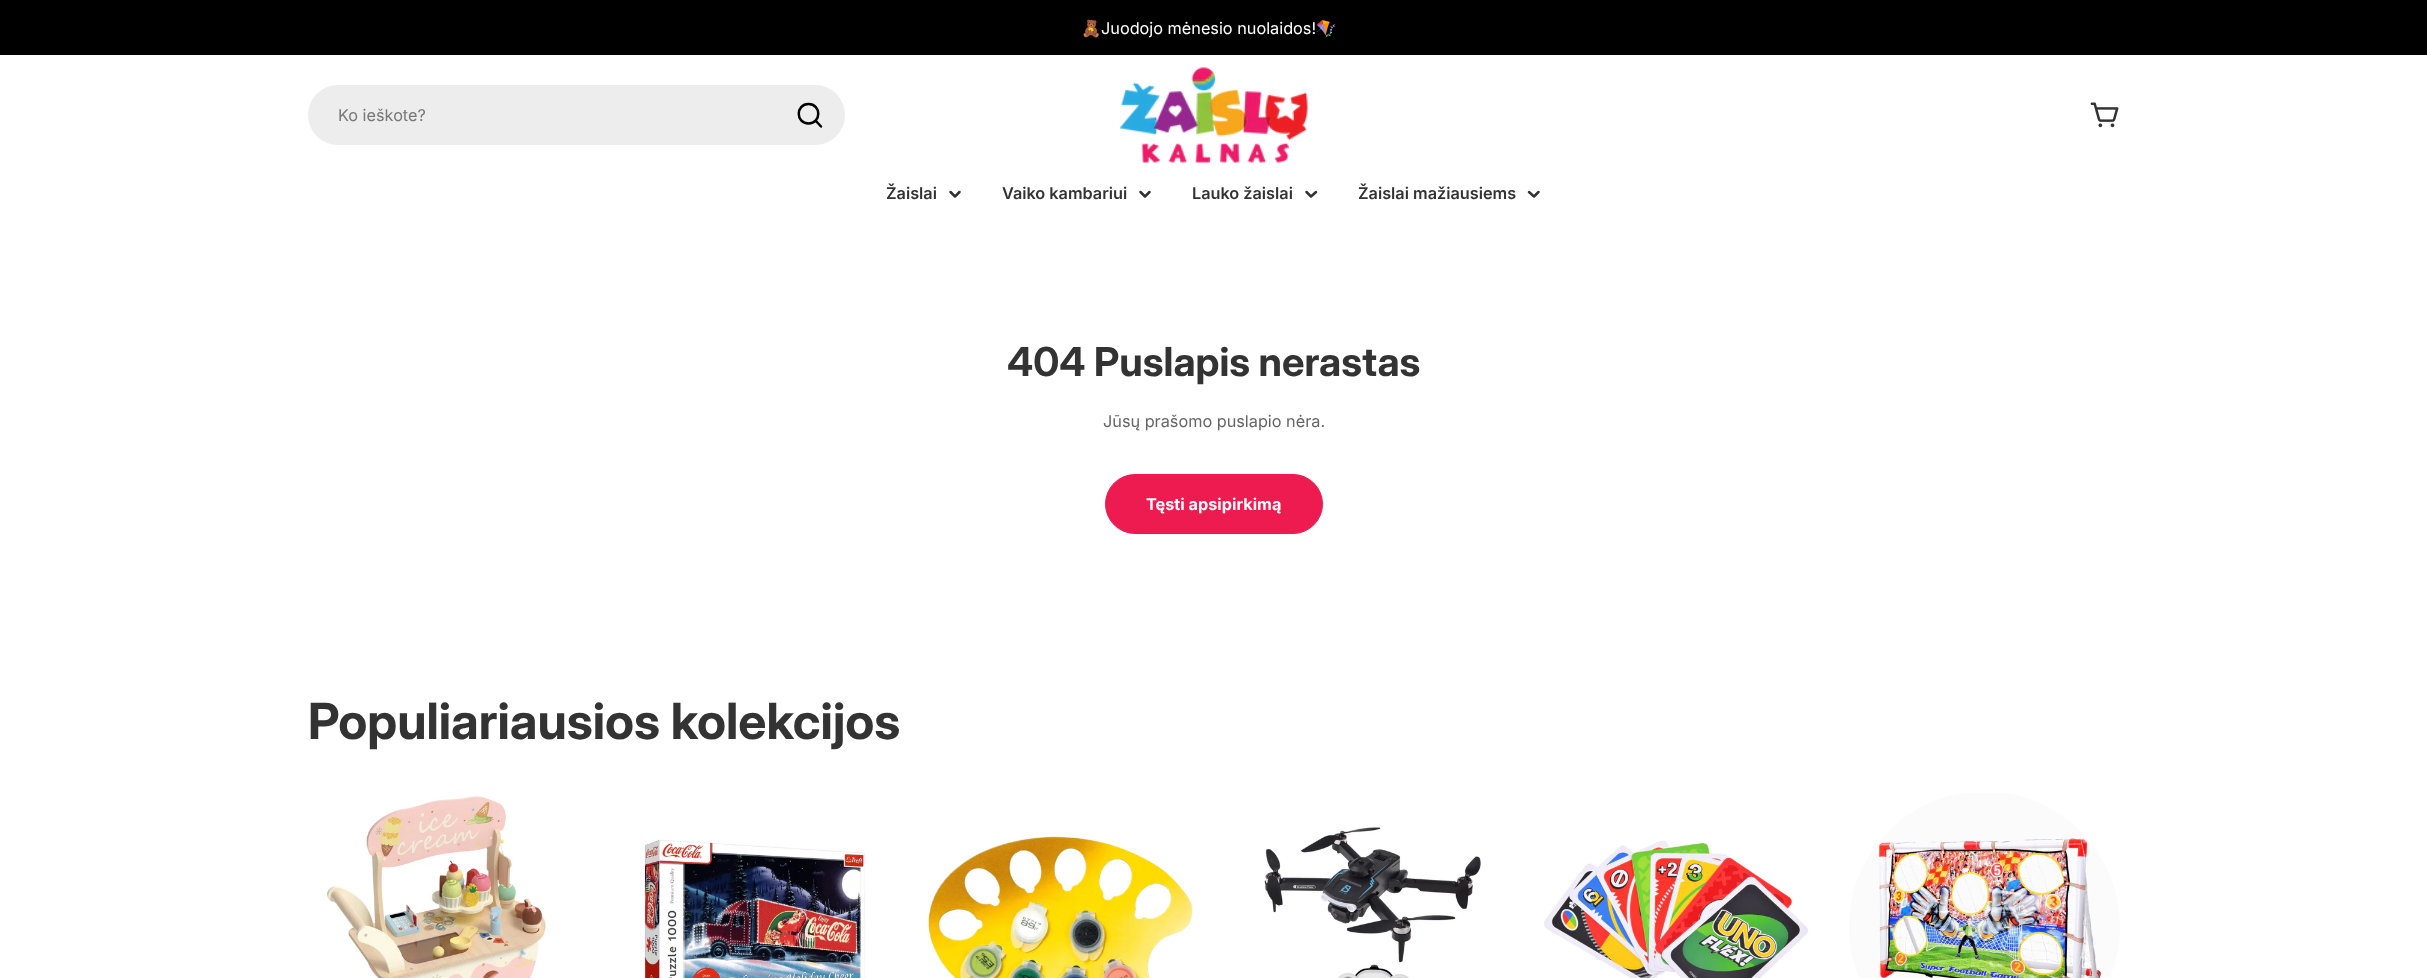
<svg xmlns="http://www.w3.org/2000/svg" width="2427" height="978">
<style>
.a{font:16.25px Noto Color Emoji;fill:#fff}
.b{font:16.25px Inter;fill:#fff}
.c{font:16.25px Inter;fill:#777}
.d{font:600 16.25px Inter;fill:#333}
.e{font:bold 40px Inter;fill:#333}
.f{font:16.25px Inter;fill:#666}
.g{font:bold 16.25px 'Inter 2';fill:#fff}
.h{font:bold 50px Inter;fill:#333}
</style>
<rect width="100%" height="100%" fill="#fff"/>
<path fill="#000" d="M0 0h2427v55H0z"/>
<rect fill="#ededed" x="308" y="85" width="537" height="60" rx="30"/>
<path fill="none" stroke="#000" stroke-width="2.5" stroke-linecap="round" stroke-linejoin="round" d="M808.5 123.5c13 0 13-19.5 0-19.5c-13 0-13 19.5 0 19.5zm7-3l5.5 6"/>
<image href="1.png" x="1120" y="67" width="188" height="96"/>
<image href="2.png" x="2090" y="102" width="29" height="26"/>
<path fill="none" stroke="#333" stroke-width="2.5" stroke-linecap="round" stroke-linejoin="round" d="M959.5 192l-4.5 4.5l-4.5-4.5"/>
<path fill="none" stroke="#333" stroke-width="2.5" stroke-linecap="round" stroke-linejoin="round" d="M1149.5 192l-4.5 4.5l-4.5-4.5"/>
<path fill="none" stroke="#333" stroke-width="2.5" stroke-linecap="round" stroke-linejoin="round" d="M1316 192l-5 4.5l-4.5-4.5"/>
<path fill="none" stroke="#333" stroke-width="2.5" stroke-linecap="round" stroke-linejoin="round" d="M1538.5 192l-4.5 4.5l-5-4.5"/>
<rect fill="#ed1b50" stroke="#ed1b50" x="1105.5" y="474.5" width="217" height="59" rx="29.5"/>
<image href="3.png" x="327" y="796" width="219" height="182"/>
<image href="4.png" x="644" y="839" width="222" height="139"/>
<image href="5.png" x="928" y="836" width="265" height="142"/>
<image href="6.png" x="1264" y="827" width="217" height="151"/>
<image href="7.png" x="1544" y="840" width="266" height="138"/>
<image href="8.png" x="1849" y="793" width="271" height="185"/>
<text class="a" x="1081" y="34">🧸</text>
<text class="b" x="1101" y="34">Juodojo mėnesio nuolaidos!</text>
<text class="a" x="1316" y="34">🪁</text>
<text class="c" x="338" y="121">Ko ieškote?</text>
<text class="d" x="886" y="199">Žaislai</text>
<text class="d" x="1002" y="199">Vaiko kambariui</text>
<text class="d" x="1192" y="199">Lauko žaislai</text>
<text class="d" x="1358" y="199">Žaislai mažiausiems</text>
<text class="e" x="1007" y="376">404 Puslapis nerastas</text>
<text class="f" x="1103" y="427">Jūsų prašomo puslapio nėra.</text>
<text class="g" x="1146" y="510">Tęsti apsipirkimą</text>
<text class="h" x="308" y="739">Populiariausios kolekcijos</text>
</svg>
